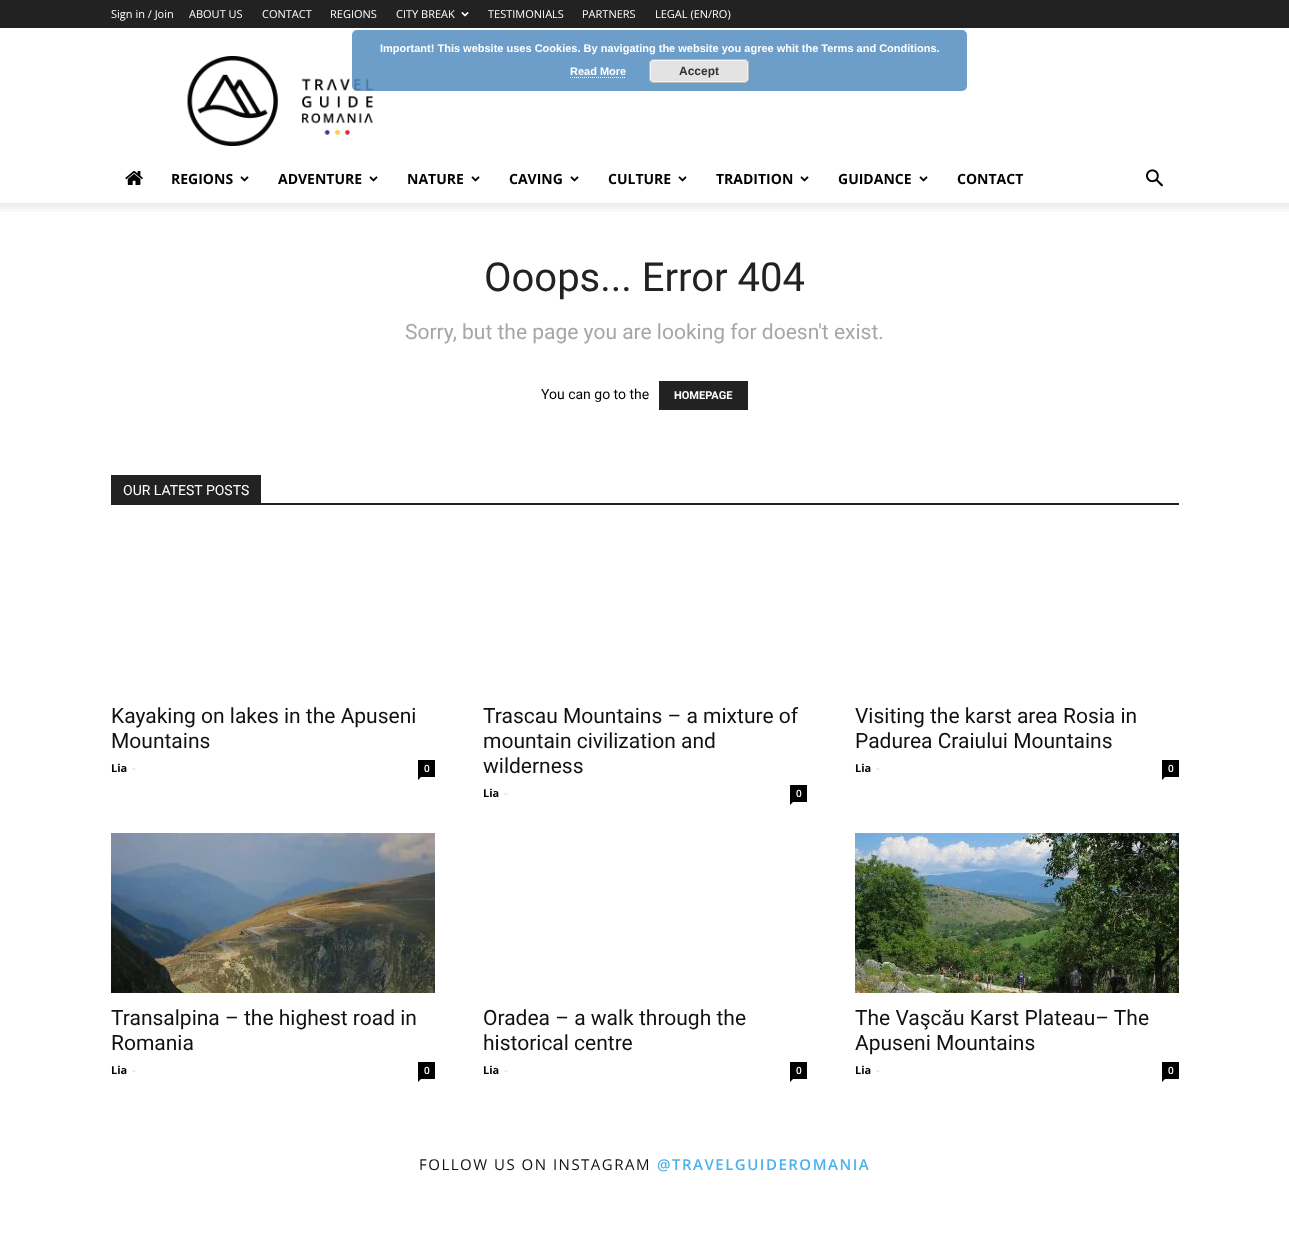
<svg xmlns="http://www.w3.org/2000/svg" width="1289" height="1249">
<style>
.a{font:11px Open Sans;fill:#fff}
.b{font:bold 14px Open Sans;fill:#000}
.c{font:40px Roboto;fill:#222}
.d{font:21px Roboto;fill:#a6a6a6}
.e{font:14px Roboto;fill:#000}
.f{font:bold 11px Roboto;fill:#fff}
.g{font:14px Roboto;fill:#fff}
.h{font:21px Roboto;fill:#111}
.i{font:bold 11px Open Sans;fill:#000}
.j{font:11px Open Sans;fill:#ccc}
.k{font:600 10px Open Sans;fill:#fff}
.l{font:15px Open Sans;letter-spacing:1.5px;fill:#111}
.m{font:600 15px Open Sans;letter-spacing:1.5px;fill:#4db2ec}
.n{font:bold 11px Liberation Sans;fill:#fff}
.o{font:bold 12px Liberation Sans;fill:#333}
</style>
<rect width="100%" height="100%" fill="#fff"/>
<path fill="#222" d="M0 0h1289v28H0z"/>
<image href="1.png" x="461" y="12" width="8" height="5"/>
<image href="2.png" x="187" y="56" width="186" height="90"/>
<image href="3.png" x="125" y="171" width="18" height="14"/>
<image href="4.png" x="240" y="176" width="9" height="6"/>
<image href="4.png" x="369" y="176" width="9" height="6"/>
<image href="4.png" x="471" y="176" width="9" height="6"/>
<image href="4.png" x="570" y="176" width="9" height="6"/>
<image href="4.png" x="678" y="176" width="9" height="6"/>
<image href="4.png" x="800" y="176" width="9" height="6"/>
<image href="4.png" x="919" y="176" width="9" height="6"/>
<image href="5.png" x="1146" y="169" width="17" height="18"/>
<image href="6.png" x="0" y="203" width="1289" height="9"/>
<path fill="#222" d="M659 381h89v29H659z"/>
<path fill="#222" d="M111 503h1068v2H111z"/>
<path fill="#222" d="M111 475h150v28H111z"/>
<path fill="#000" d="M418 760h17v17H418z"/>
<path fill="#000" d="M418 777h3l-3 3z"/>
<path fill="#000" d="M790 785h17v17H790z"/>
<path fill="#000" d="M790 802h3l-3 3z"/>
<path fill="#000" d="M1162 760h17v17H1162z"/>
<path fill="#000" d="M1162 777h3l-3 3z"/>
<image href="7.png" x="111" y="833" width="324" height="160"/>
<path fill="#000" d="M418 1062h17v17H418z"/>
<path fill="#000" d="M418 1079h3l-3 3z"/>
<path fill="#000" d="M790 1062h17v17H790z"/>
<path fill="#000" d="M790 1079h3l-3 3z"/>
<image href="8.png" x="855" y="833" width="324" height="160"/>
<path fill="#000" d="M1162 1062h17v17H1162z"/>
<path fill="#000" d="M1162 1079h3l-3 3z"/>
<rect fill="#548dbfd9" x="352" y="30" width="615" height="61" rx="5"/>
<path fill="none" stroke="#fff" stroke-dasharray="1 1" d="M570 77.5h56"/>
<rect fill="#e3e3e3" x="649" y="59" width="100" height="24" rx="5"/>
<rect fill="none" stroke="#f6f6f6" x="650.5" y="60.5" width="97" height="21" rx="3.5"/>
<rect fill="none" stroke="#bbb" x="649.5" y="59.5" width="99" height="23" rx="4.5"/>
<text class="a" x="111" y="18">Sign in / Join</text>
<text class="a" x="189" y="18">ABOUT US</text>
<text class="a" x="262" y="18">CONTACT</text>
<text class="a" x="330" y="18">REGIONS</text>
<text class="a" x="396" y="18">CITY BREAK</text>
<text class="a" x="488" y="18">TESTIMONIALS</text>
<text class="a" x="582" y="18">PARTNERS</text>
<text class="a" x="655" y="18">LEGAL (EN/RO)</text>
<text class="b" x="171" y="184">REGIONS</text>
<text class="b" x="278" y="184">ADVENTURE</text>
<text class="b" x="407" y="184">NATURE</text>
<text class="b" x="509" y="184">CAVING</text>
<text class="b" x="608" y="184">CULTURE</text>
<text class="b" x="716" y="184">TRADITION</text>
<text class="b" x="838" y="184">GUIDANCE</text>
<text class="b" x="957" y="184">CONTACT</text>
<text class="c" x="484" y="291">Ooops... Error 404</text>
<text class="d" x="405" y="339">Sorry, but the page you are looking for doesn't exist.</text>
<text class="e" x="541" y="399">You can go to the</text>
<text class="f" x="674" y="399">HOMEPAGE</text>
<text class="g" x="123" y="495">OUR LATEST POSTS</text>
<text class="h" x="111" y="723">Kayaking on lakes in the Apuseni</text>
<text class="h" x="111" y="748">Mountains</text>
<text class="i" x="111" y="772">Lia</text>
<text class="j" x="132" y="772">-</text>
<text class="k" x="424" y="772">0</text>
<text class="h" x="483" y="723">Trascau Mountains – a mixture of</text>
<text class="h" x="483" y="748">mountain civilization and</text>
<text class="h" x="483" y="773">wilderness</text>
<text class="i" x="483" y="797">Lia</text>
<text class="j" x="504" y="797">-</text>
<text class="k" x="796" y="797">0</text>
<text class="h" x="855" y="723">Visiting the karst area Rosia in</text>
<text class="h" x="855" y="748">Padurea Craiului Mountains</text>
<text class="i" x="855" y="772">Lia</text>
<text class="j" x="876" y="772">-</text>
<text class="k" x="1168" y="772">0</text>
<text class="h" x="111" y="1025">Transalpina – the highest road in</text>
<text class="h" x="111" y="1050">Romania</text>
<text class="i" x="111" y="1074">Lia</text>
<text class="j" x="132" y="1074">-</text>
<text class="k" x="424" y="1074">0</text>
<text class="h" x="483" y="1025">Oradea – a walk through the</text>
<text class="h" x="483" y="1050">historical centre</text>
<text class="i" x="483" y="1074">Lia</text>
<text class="j" x="504" y="1074">-</text>
<text class="k" x="796" y="1074">0</text>
<text class="h" x="855" y="1025">The Vaşcău Karst Plateau– The</text>
<text class="h" x="855" y="1050">Apuseni Mountains</text>
<text class="i" x="855" y="1074">Lia</text>
<text class="j" x="876" y="1074">-</text>
<text class="k" x="1168" y="1074">0</text>
<text class="l" x="419" y="1170">FOLLOW US ON INSTAGRAM</text>
<text class="m" x="657" y="1170">@TRAVELGUIDEROMANIA</text>
<text class="n" x="380" y="52">Important! This website uses Cookies. By navigating the website you agree whit the Terms and Conditions.</text>
<text class="n" x="570" y="75">Read More</text>
<text class="o" x="679" y="75">Accept</text>
</svg>
